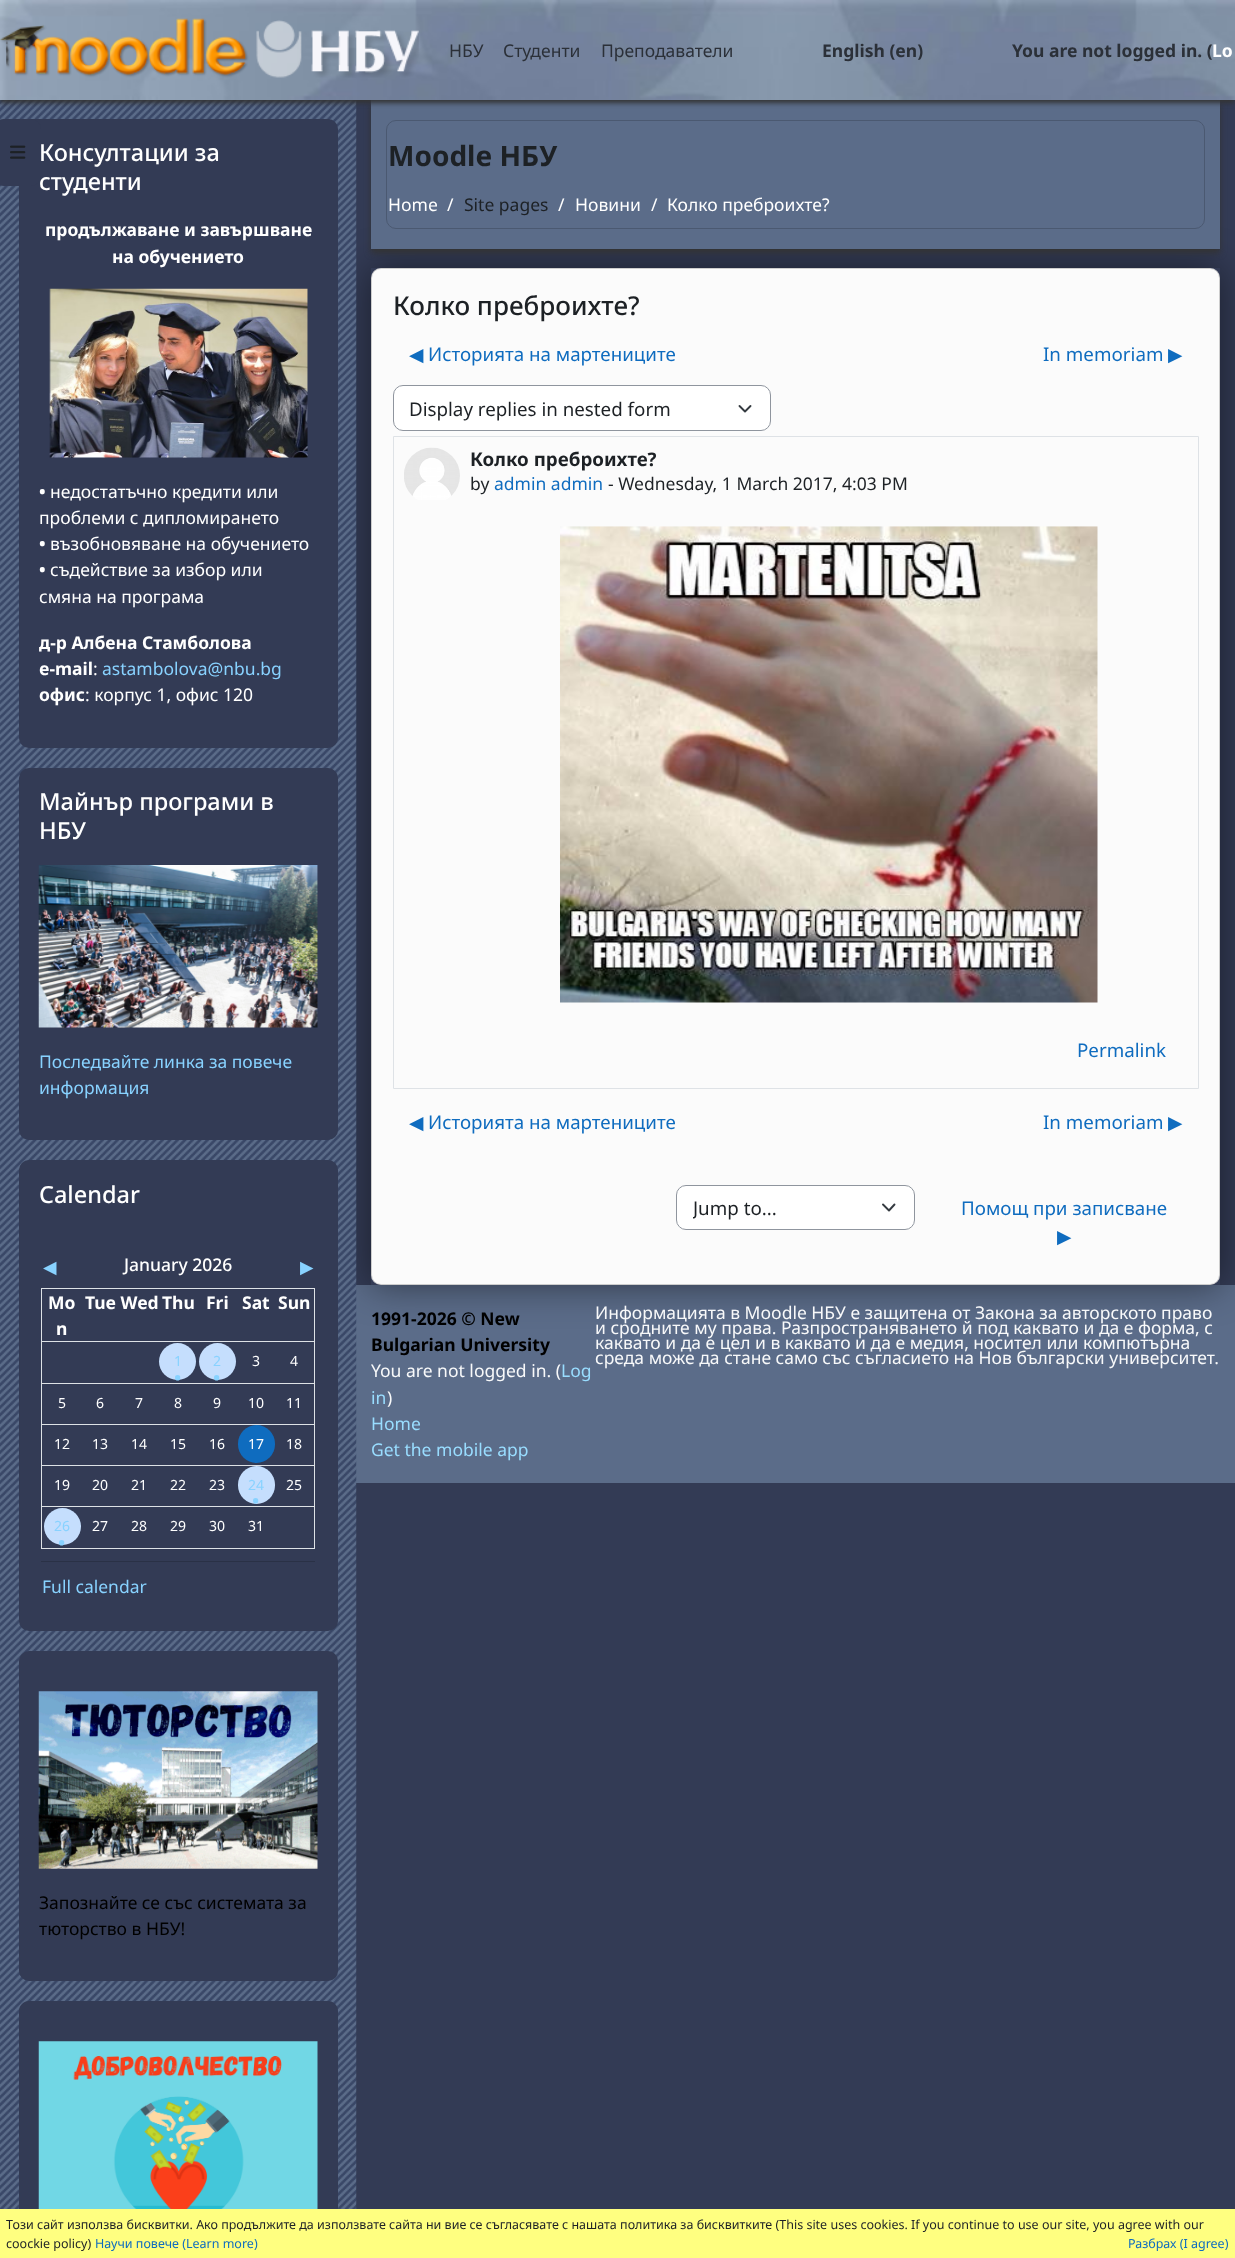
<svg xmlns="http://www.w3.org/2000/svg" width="1235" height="2258">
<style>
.a{font:17.5px Noto Sans;fill:#2b3038}
.b{font:bold 17.5px Noto Sans;fill:#2b3038}
.c{font:bold 17.5px Noto Sans;fill:#fff}
.d{font:500 23.5px Noto Sans;fill:#fff}
.e{font:17.5px Noto Sans;fill:#fff}
.f{font:17.5px Noto Sans;fill:#88d2ff}
.g{font:17.5px DejaVu Sans;fill:#88d2ff}
.h{font:500 17.5px Noto Sans;fill:#fff}
.i{font:14px Noto Sans;fill:#88d2ff}
.j{font:42px Noto Sans;fill:#88d2ff}
.k{font:14px Noto Sans;fill:#fff}
.l{font:17.5px Noto Sans;fill:#000}
.m{font:bold 28px Noto Sans;fill:#1d2125}
.n{font:17.5px Noto Sans;fill:#1d2125}
.o{font:500 26px Noto Sans;fill:#1d2125}
.p{font:18.75px DejaVu Sans;fill:#0f6cbf}
.q{font:18.75px Noto Sans;fill:#0f6cbf}
.r{font:18.75px Noto Sans;fill:#1d2125}
.s{font:bold 18.75px Noto Sans;fill:#1d2125}
.t{font:17.5px Noto Sans;fill:#0f6cbf}
.u{font:bold 17.5px Noto Sans;fill:#000}
.v{font:17.5px Noto Sans;fill:#f8f9fa}
.w{font:17.5px Noto Sans;fill:#9df}
.x{font:12.5px Noto Sans;fill:#1d2125}
.y{font:12.5px Noto Sans;fill:#0f6cbf}
</style>
<defs>
<clipPath id="clip1"><path d="M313 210h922v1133h-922zm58 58h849v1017h-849z" clip-rule="evenodd"/></clipPath>
<clipPath id="clip2"><path d="M39 216h279v512H39z"/></clipPath>
<clipPath id="clip3"><path d="M693 1194h176v27H693z"/></clipPath>
</defs>
<rect width="100%" height="100%" fill="#333b55"/>
<path fill="#5b6c89" d="M356 1285h879v198H356z"/>
<g clip-path="url(#clip1)">
<path fill="#00000080" filter="blur(19px)" d="M371 268h849v1017H371z"/>
</g>
<image href="4.png" x="0" y="100" width="357" height="2109"/>
<path fill="#333" filter="blur(3px)" d="M371 104h849v149H371z"/>
<path fill="#5b6c89" d="M371 100h849v149H371z"/>
<path fill="#333" filter="blur(2.5px)" d="M0 3h1235v100H0z"/>
<image href="1.png" x="0" y="0" width="1235" height="100"/>
<image href="2.png" x="0" y="18" width="419" height="60"/>
<rect fill="#333b55" x="19" y="119" width="319" height="629" rx="10"/>
<image href="5.png" x="49" y="288" width="259" height="170"/>
<rect fill="#333b55" x="19" y="768" width="319" height="372" rx="10"/>
<image href="6.png" x="38" y="865" width="280" height="163"/>
<rect fill="#333b55" x="19" y="1160" width="319" height="471" rx="10"/>
<path fill="#dee2e6" d="M41 1288h274v1H41z"/>
<path fill="#dee2e6" d="M41 1341h274v1H41z"/>
<path fill="#dee2e6" d="M314 1341h1v208H314z"/>
<path fill="#dee2e6" d="M314 1288h1v55H314z"/>
<path fill="#dee2e6" d="M41 1548h274v1H41z"/>
<path fill="#dee2e6" d="M41 1341h1v208H41z"/>
<path fill="#dee2e6" d="M41 1288h1v55H41z"/>
<circle fill="#c5defd" cx="177.5" cy="1361.5" r="18.5"/>
<circle fill="#c5defd" cx="217.5" cy="1361.5" r="18.5"/>
<path fill="#dee2e6" d="M41 1383h274v1H41z"/>
<path fill="#dee2e6" d="M41 1424h274v1H41z"/>
<rect fill="#0f6cbf" x="238" y="1425" width="37" height="38" rx="18.5"/>
<path fill="#dee2e6" d="M41 1465h274v1H41z"/>
<rect fill="#c5defd" x="238" y="1466" width="37" height="38" rx="18.5"/>
<path fill="#dee2e6" d="M41 1506h274v1H41z"/>
<circle fill="#c5defd" cx="62.5" cy="1526.5" r="18.5"/>
<path fill="#2a3146" d="M41 1561h274v1H41z"/>
<rect fill="#333b55" x="19" y="1651" width="319" height="330" rx="10"/>
<image href="7.png" x="38" y="1691" width="280" height="178"/>
<path fill="#333b55" d="M29 2001h299c5.5 0 10 4.5 10 10v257h-319v-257c0-5.5 4.5-10 10-10z"/>
<image href="8.png" x="38" y="2041" width="280" height="168"/>
<rect fill="none" stroke="#4b5971" x="386.5" y="120.5" width="818" height="108" rx="9.5"/>
<rect fill="#fffffffa" x="371" y="268" width="849" height="1017" rx="10"/>
<rect fill="none" stroke="#0000002e" x="371.5" y="268.5" width="848" height="1016" rx="9.5"/>
<rect fill="#fff" x="393" y="385" width="378" height="46" rx="10"/>
<path fill="none" stroke="#343a40" stroke-width="1.9" stroke-linecap="round" stroke-linejoin="round" d="M739.5 406l5.5 5.5l5.5-5.5"/>
<rect fill="none" stroke="#8f959e" x="393.5" y="385.5" width="377" height="45" rx="9.5"/>
<path fill="none" stroke="#dee2e6" d="M393.5 436.5h805v652H393.5z"/>
<image href="9.png" x="404" y="447" width="56" height="53"/>
<image href="10.png" x="560" y="526" width="538" height="477"/>
<rect fill="#fff" x="676" y="1185" width="239" height="45" rx="10"/>
<path fill="none" stroke="#343a40" stroke-width="1.9" stroke-linecap="round" stroke-linejoin="round" d="M883 1204.5l6 6l5.5-6"/>
<rect fill="none" stroke="#8f959e" x="676.5" y="1185.5" width="238" height="44" rx="9.5"/>
<path fill="#ffff80" d="M0 2209h1235v49H0z"/>
<text class="a" x="449" y="57">НБУ</text>
<text class="a" x="503" y="57">Студенти</text>
<text class="a" x="601" y="57">Преподаватели</text>
<text class="b" x="822" y="57">English (en)</text>
<text class="b" x="1012" y="57">You are not logged in. (</text>
<text class="c" x="1212" y="57">Lo</text>
<text class="d" x="39" y="161">Консултации за</text>
<text class="d" x="39" y="190">студенти</text>
<rect fill="#333b55" x="-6" y="119" width="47" height="67" rx="10"/>
<image href="3.png" x="10" y="145" width="16" height="14"/>
<text class="c" x="45" y="236">продължаване и завършване</text>
<text class="c" x="112" y="263">на обучението</text>
<text class="c" x="39" y="498">•</text>
<text class="e" x="50" y="498">недостатъчно кредити или</text>
<text class="e" x="39" y="524">проблеми с дипломирането</text>
<text class="c" x="39" y="550">•</text>
<text class="e" x="50" y="550">възобновяване на обучението</text>
<text class="c" x="39" y="576">•</text>
<text class="e" x="50" y="576">съдействие за избор или</text>
<text class="e" x="39" y="603">смяна на програма</text>
<g clip-path="url(#clip2)">
<text class="c" x="39" y="649">д-р Албена Стамболова</text>
</g>
<text class="c" x="39" y="675">e-mail</text>
<text class="e" x="93" y="675">:</text>
<text class="f" x="102" y="675">astambolova@nbu.bg</text>
<text class="c" x="39" y="701">офис</text>
<text class="e" x="85" y="701">: корпус 1, офис 120</text>
<text class="d" x="39" y="810">Майнър програми в</text>
<text class="d" x="39" y="839">НБУ</text>
<text class="f" x="39" y="1068">Последвайте линка за повече</text>
<text class="f" x="39" y="1094">информация</text>
<text class="d" x="39" y="1203">Calendar</text>
<text class="g" x="43" y="1273">◀︎</text>
<text class="h" x="124" y="1271">January 2026</text>
<text class="g" x="300" y="1273">▶︎</text>
<text class="c" x="48" y="1309">Mo</text>
<text class="c" x="56" y="1335">n</text>
<text class="c" x="85" y="1309">Tue Wed</text>
<text class="c" x="162" y="1309">Thu</text>
<text class="c" x="206" y="1309">Fri</text>
<text class="c" x="242" y="1309">Sat</text>
<text class="c" x="278" y="1309">Sun</text>
<text class="i" x="174" y="1366">1</text>
<text class="j" x="172" y="1380">.</text>
<text class="i" x="213" y="1366">2</text>
<text class="j" x="211" y="1380">.</text>
<text class="k" x="252" y="1366">3</text>
<text class="k" x="290" y="1366">4</text>
<text class="k" x="58" y="1408">5</text>
<text class="k" x="96" y="1408">6</text>
<text class="k" x="135" y="1408">7</text>
<text class="k" x="174" y="1408">8</text>
<text class="k" x="213" y="1408">9</text>
<text class="k" x="248" y="1408">10</text>
<text class="k" x="286" y="1408">11</text>
<text class="k" x="54" y="1449">12</text>
<text class="k" x="92" y="1449">13</text>
<text class="k" x="131" y="1449">14</text>
<text class="k" x="170" y="1449">15</text>
<text class="k" x="209" y="1449">16</text>
<text class="k" x="248" y="1449">17</text>
<text class="k" x="286" y="1449">18</text>
<text class="k" x="54" y="1490">19</text>
<text class="k" x="92" y="1490">20</text>
<text class="k" x="131" y="1490">21</text>
<text class="k" x="170" y="1490">22</text>
<text class="k" x="209" y="1490">23</text>
<text class="i" x="248" y="1490">24</text>
<text class="j" x="250" y="1503">.</text>
<text class="k" x="286" y="1490">25</text>
<text class="i" x="54" y="1531">26</text>
<text class="j" x="56" y="1545">.</text>
<text class="k" x="92" y="1531">27</text>
<text class="k" x="131" y="1531">28</text>
<text class="k" x="170" y="1531">29</text>
<text class="k" x="209" y="1531">30</text>
<text class="k" x="248" y="1531">31</text>
<text class="f" x="42" y="1593">Full calendar</text>
<text class="l" x="39" y="1909">Запознайте се със системата за</text>
<text class="l" x="39" y="1935">тюторство в НБУ!</text>
<text class="m" x="388" y="166">Moodle НБУ</text>
<text class="e" x="388" y="211">Home</text>
<text class="e" x="447" y="211">/</text>
<text class="n" x="464" y="211">Site pages</text>
<text class="e" x="558" y="211">/</text>
<text class="e" x="575" y="211">Новини</text>
<text class="e" x="651" y="211">/</text>
<text class="e" x="667" y="211">Колко преброихте?</text>
<text class="o" x="393" y="315">Колко преброихте?</text>
<text class="p" x="409" y="361">◀︎</text>
<text class="q" x="428" y="361">Историята на мартениците</text>
<text class="q" x="1043" y="361">In memoriam</text>
<text class="p" x="1168" y="361">▶︎</text>
<text class="r" x="409" y="416">Display replies in nested form</text>
<text class="s" x="470" y="466">Колко преброихте?</text>
<text class="n" x="470" y="490">by</text>
<text class="t" x="494" y="490">admin admin</text>
<text class="n" x="608" y="490">- Wednesday, 1 March 2017, 4:03 PM</text>
<text class="q" x="1077" y="1057">Permalink</text>
<text class="p" x="409" y="1129">◀︎</text>
<text class="q" x="428" y="1129">Историята на мартениците</text>
<text class="q" x="1043" y="1129">In memoriam</text>
<text class="p" x="1168" y="1129">▶︎</text>
<g clip-path="url(#clip3)">
<text class="r" x="693" y="1215">Jump to...</text>
</g>
<text class="q" x="961" y="1215">Помощ при записване</text>
<text class="p" x="1057" y="1243">▶︎</text>
<text class="u" x="371" y="1325">1991-2026 © New</text>
<text class="v" x="595" y="1319">Информацията в Moodle НБУ е защитена от Закона за авторското право</text>
<text class="v" x="595" y="1334">и сродните му права. Разпространяването й под каквато и да е форма, с</text>
<text class="v" x="595" y="1349">каквато и да е цел и в каквато и да е медия, носител или компютърна</text>
<text class="v" x="595" y="1364">среда може да стане само със съгласието на Нов български университет.</text>
<text class="u" x="371" y="1351">Bulgarian University</text>
<text class="v" x="371" y="1377">You are not logged in. (</text>
<text class="w" x="561" y="1377">Log</text>
<text class="w" x="371" y="1404">in</text>
<text class="v" x="387" y="1404">)</text>
<text class="w" x="371" y="1430">Home</text>
<text class="w" x="371" y="1456">Get the mobile app</text>
<text class="x" x="6" y="2229">Този сайт използва бисквитки. Ако продължите да използвате сайта ни вие се съгласявате с нашата политика за бисквитките (This site uses cookies. If you continue to use our site, you agree with our</text>
<text class="x" x="6" y="2248">coockie policy)</text>
<text class="y" x="95" y="2248">Научи повече (Learn more)</text>
<text class="y" x="1128" y="2248">Разбрах (I agree)</text>
</svg>
